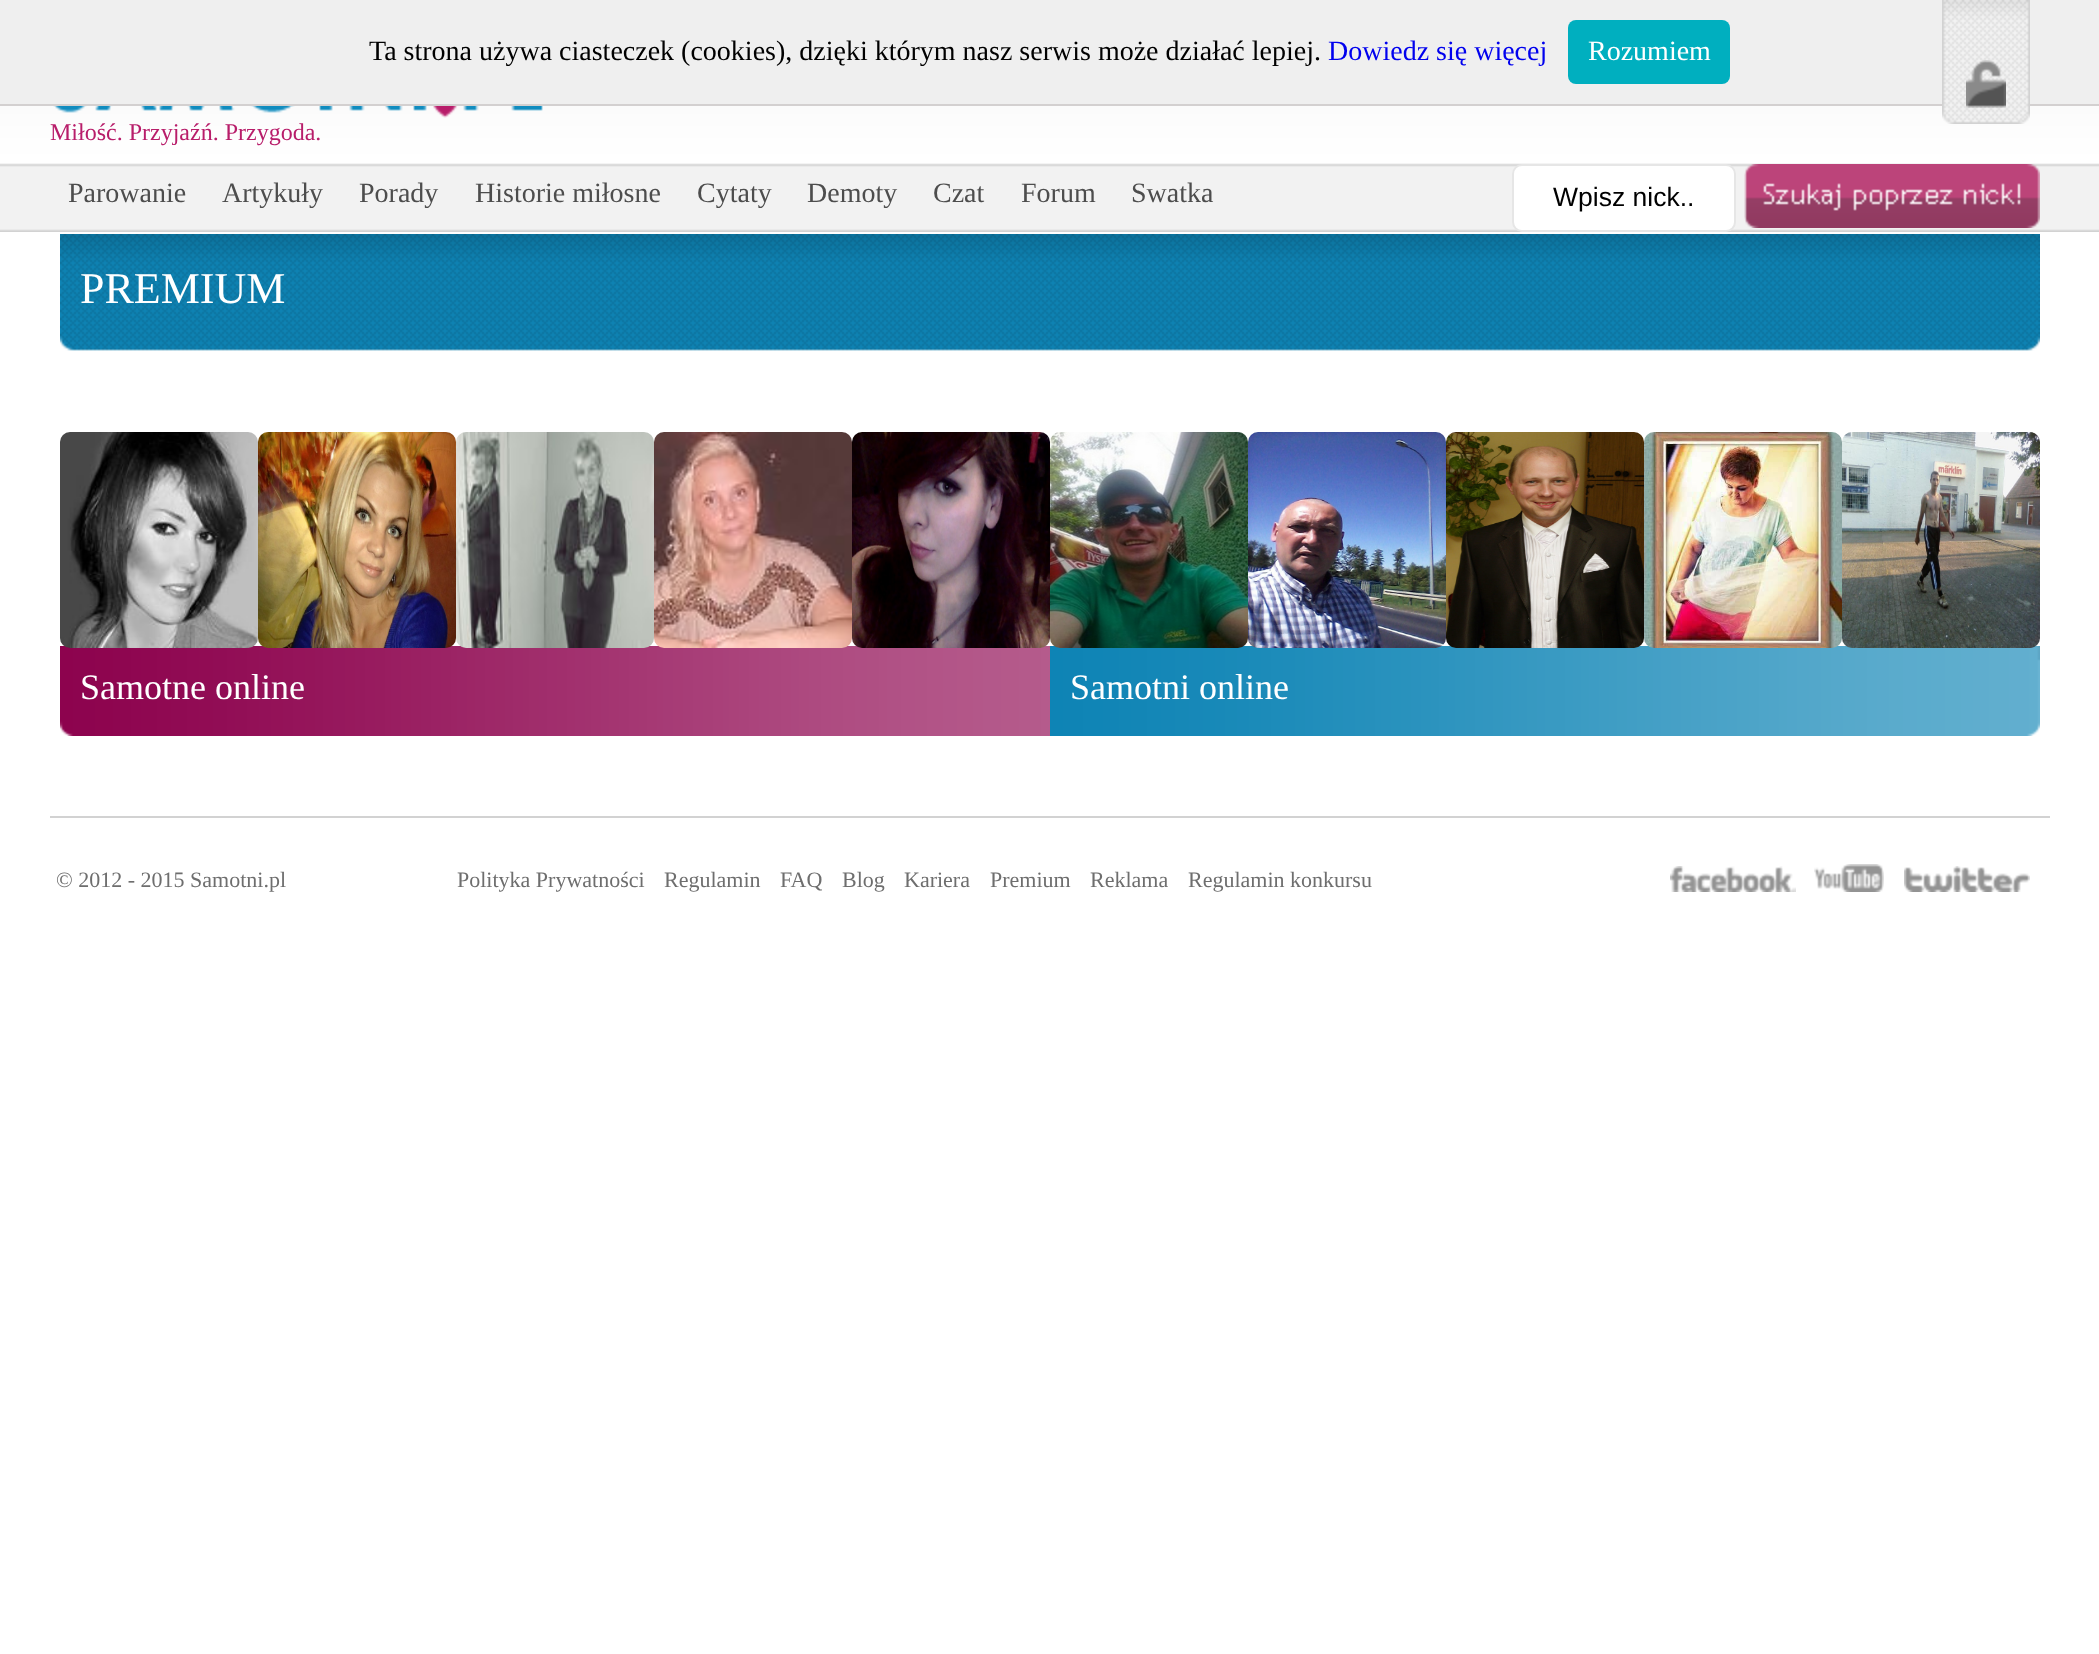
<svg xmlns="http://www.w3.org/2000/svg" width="2099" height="1654">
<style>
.a{font:28px Liberation Serif;fill:#000}
.b{font:28px Liberation Serif;fill:#00e}
.c{font:28px Liberation Serif;fill:#fff}
.d{font:24px Liberation Serif;fill:#b81d6a}
.e{font:28px Liberation Serif;fill:#4d4d4d}
.f{font:26.5px Liberation Sans;fill:#000}
.g{font:44px Liberation Serif;fill:#fff}
.h{font:36px Liberation Serif;fill:#fff}
.i{font:22px Liberation Serif;fill:#6e6e6e}
</style>
<rect width="100%" height="100%" fill="#fff"/>
<image href="1.png" x="0" y="106" width="2099" height="126"/>
<path fill="#efefef" d="M0 0h2099v104H0z"/>
<path fill="#d3d0d0" d="M0 104h2099v2H0z"/>
<rect fill="#00afbf" x="1568" y="20" width="162" height="64" rx="8"/>
<image href="2.png" x="1942" y="0" width="88" height="124"/>
<image href="3.png" x="1966" y="60" width="40" height="48"/>
<image href="4.png" x="53" y="106" width="490" height="12"/>
<rect fill="#fff" stroke="#e6e6e6" stroke-width="2" x="1513" y="165" width="222" height="66" rx="9"/>
<image href="5.png" x="1744" y="164" width="296" height="64"/>
<image href="6.png" x="60" y="234" width="1980" height="117"/>
<image href="7.png" x="60" y="646" width="990" height="90"/>
<image href="8.png" x="60" y="432" width="198" height="216"/>
<image href="9.png" x="258" y="432" width="198" height="216"/>
<image href="10.png" x="456" y="432" width="198" height="216"/>
<image href="11.png" x="654" y="432" width="198" height="216"/>
<image href="12.png" x="852" y="432" width="198" height="216"/>
<image href="13.png" x="1050" y="646" width="990" height="90"/>
<image href="14.png" x="1050" y="432" width="198" height="216"/>
<image href="15.png" x="1248" y="432" width="198" height="216"/>
<image href="16.png" x="1446" y="432" width="198" height="216"/>
<image href="17.png" x="1644" y="432" width="198" height="216"/>
<image href="18.png" x="1842" y="432" width="198" height="216"/>
<path fill="#d2d2d2" d="M50 816h2000v2H50z"/>
<image href="19.png" x="1670" y="866" width="126" height="26"/>
<image href="20.png" x="1814" y="864" width="70" height="28"/>
<image href="21.png" x="1904" y="866" width="126" height="26"/>
<text class="a" x="369" y="60">Ta strona używa ciasteczek (cookies), dzięki którym nasz serwis może działać lepiej.</text>
<text class="b" x="1328" y="60">Dowiedz się więcej</text>
<text class="c" x="1588" y="60">Rozumiem</text>
<text class="d" x="50" y="140">Miłość. Przyjaźń. Przygoda.</text>
<text class="e" x="68" y="202">Parowanie</text>
<text class="e" x="222" y="202">Artykuły</text>
<text class="e" x="359" y="202">Porady</text>
<text class="e" x="475" y="202">Historie miłosne</text>
<text class="e" x="697" y="202">Cytaty</text>
<text class="e" x="807" y="202">Demoty</text>
<text class="e" x="933" y="202">Czat</text>
<text class="e" x="1021" y="202">Forum</text>
<text class="e" x="1131" y="202">Swatka</text>
<text class="f" x="1553" y="206">Wpisz nick..</text>
<text class="g" x="80" y="303">PREMIUM</text>
<text class="h" x="80" y="699">Samotne online</text>
<text class="h" x="1070" y="699">Samotni online</text>
<text class="i" x="56" y="887">© 2012 - 2015 Samotni.pl</text>
<text class="i" x="457" y="887">Polityka Prywatności</text>
<text class="i" x="664" y="887">Regulamin</text>
<text class="i" x="780" y="887">FAQ</text>
<text class="i" x="842" y="887">Blog</text>
<text class="i" x="904" y="887">Kariera</text>
<text class="i" x="990" y="887">Premium</text>
<text class="i" x="1090" y="887">Reklama</text>
<text class="i" x="1188" y="887">Regulamin konkursu</text>
</svg>
